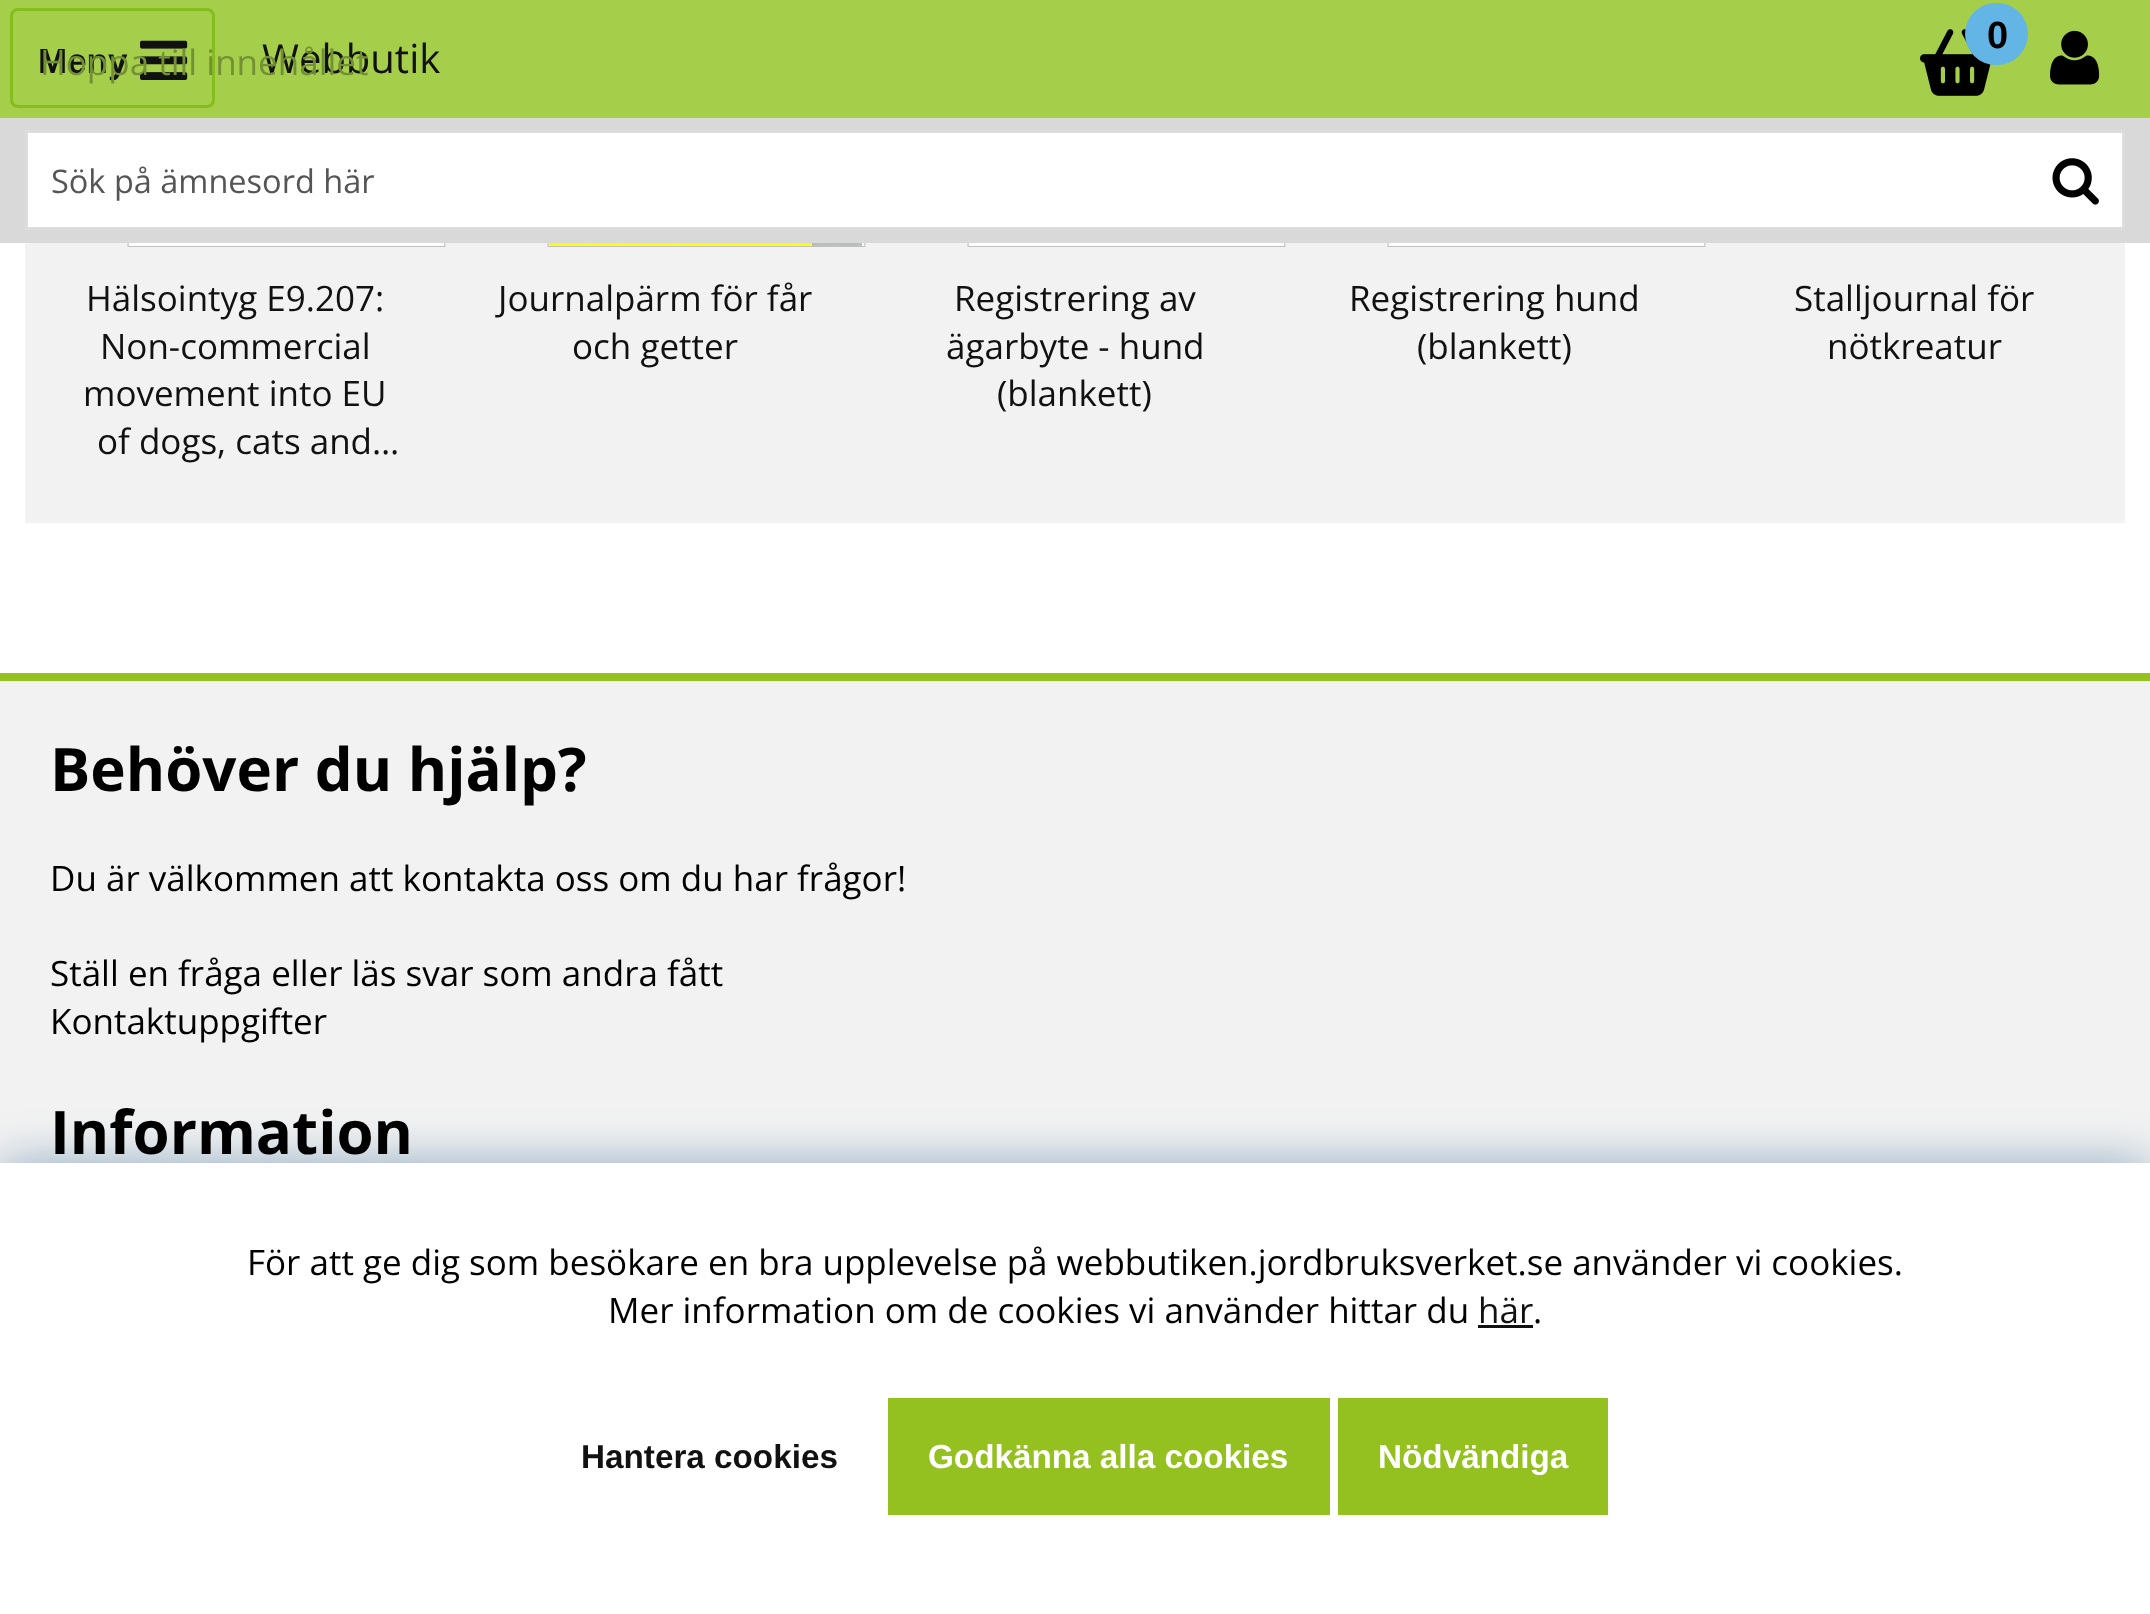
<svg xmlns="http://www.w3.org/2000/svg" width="2150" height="1614">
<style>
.a{font:bold 35px Liberation Sans;fill:#111}
.b{font:40px Open Sans;fill:#111}
.c{font:bold 38px Liberation Sans;fill:#000}
.d{font:35px Open Sans;fill:#749037}
.e{font:32.5px Open Sans;fill:#555}
.f{font:35px Open Sans;fill:#111}
.g{font:bold 60px Open Sans;fill:#000}
.h{font:35px Open Sans;fill:#000}
.i{font:bold 33.25px Liberation Sans;fill:#111}
.j{font:bold 33.25px Liberation Sans;fill:#fff}
</style>
<rect width="100%" height="100%" fill="#fff"/>
<path fill="#a5ce4a" d="M0 0h2150v118H0z"/>
<rect fill="none" stroke="#85bd1f" stroke-width="3" x="11.5" y="9.5" width="202" height="97" rx="6.5"/>
<image href="1.png" x="140" y="40" width="48" height="40"/>
<image href="2.png" x="1920" y="29" width="71" height="67"/>
<rect fill="#62b5e5" x="1965" y="3" width="63" height="62" rx="31"/>
<image href="3.png" x="2050" y="30" width="50" height="55"/>
<path fill="#d9d9d9" d="M0 118h2150v125H0z"/>
<path fill="#fff" stroke="#ddd" stroke-width="3" d="M26.5 131.5h2097v97H26.5z"/>
<image href="4.png" x="2052" y="158" width="47" height="47"/>
<path fill="#f2f2f2" d="M25 243h2100v280H25z"/>
<image href="5.png" x="127" y="243" width="319" height="4"/>
<image href="6.png" x="547" y="243" width="319" height="4"/>
<image href="5.png" x="967" y="243" width="319" height="4"/>
<image href="5.png" x="1387" y="243" width="319" height="4"/>
<path fill="#f2f2f2" d="M0 681h2150v482H0z"/>
<path fill="#94c11f" d="M0 673h2150v8H0z"/>
<path fill="#00427a70" filter="blur(25px)" d="M0 1165h2150v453H0z"/>
<path fill="#fff" d="M0 1163h2150v451H0z"/>
<path fill="#111" d="M1478 1325h55v3H1478z"/>
<path fill="#94c11f" d="M888 1398h442v117H888z"/>
<path fill="#94c11f" d="M1338 1398h270v117H1338z"/>
<text class="a" x="38" y="73">Meny</text>
<text class="b" x="262" y="73">Webbutik</text>
<text class="c" x="1987" y="48">0</text>
<text class="d" x="40" y="75">Hoppa till innehållet</text>
<text class="e" x="51" y="193">Sök på ämnesord här</text>
<text class="f" x="86" y="311">Hälsointyg E9.207:</text>
<text class="f" x="100" y="359">Non-commercial</text>
<text class="f" x="83" y="406">movement into EU</text>
<text class="f" x="97" y="454">of dogs, cats and…</text>
<text class="f" x="498" y="311">Journalpärm för får</text>
<text class="f" x="572" y="359">och getter</text>
<text class="f" x="954" y="311">Registrering av</text>
<text class="f" x="946" y="359">ägarbyte - hund</text>
<text class="f" x="997" y="406">(blankett)</text>
<text class="f" x="1349" y="311">Registrering hund</text>
<text class="f" x="1417" y="359">(blankett)</text>
<text class="f" x="1794" y="311">Stalljournal för</text>
<text class="f" x="1827" y="359">nötkreatur</text>
<text class="g" x="50" y="791">Behöver du hjälp?</text>
<text class="h" x="50" y="891">Du är välkommen att kontakta oss om du har frågor!</text>
<text class="h" x="50" y="986">Ställ en fråga eller läs svar som andra fått</text>
<text class="h" x="50" y="1034">Kontaktuppgifter</text>
<text class="g" x="50" y="1154">Information</text>
<text class="h" x="247" y="1275">För att ge dig som besökare en bra upplevelse på webbutiken.jordbruksverket.se använder vi cookies.</text>
<text class="h" x="608" y="1323">Mer information om de cookies vi använder hittar du</text>
<text class="f" x="1478" y="1323">här</text>
<text class="h" x="1533" y="1323">.</text>
<text class="i" x="581" y="1468">Hantera cookies</text>
<text class="j" x="928" y="1468">Godkänna alla cookies</text>
<text class="j" x="1378" y="1468">Nödvändiga</text>
</svg>
